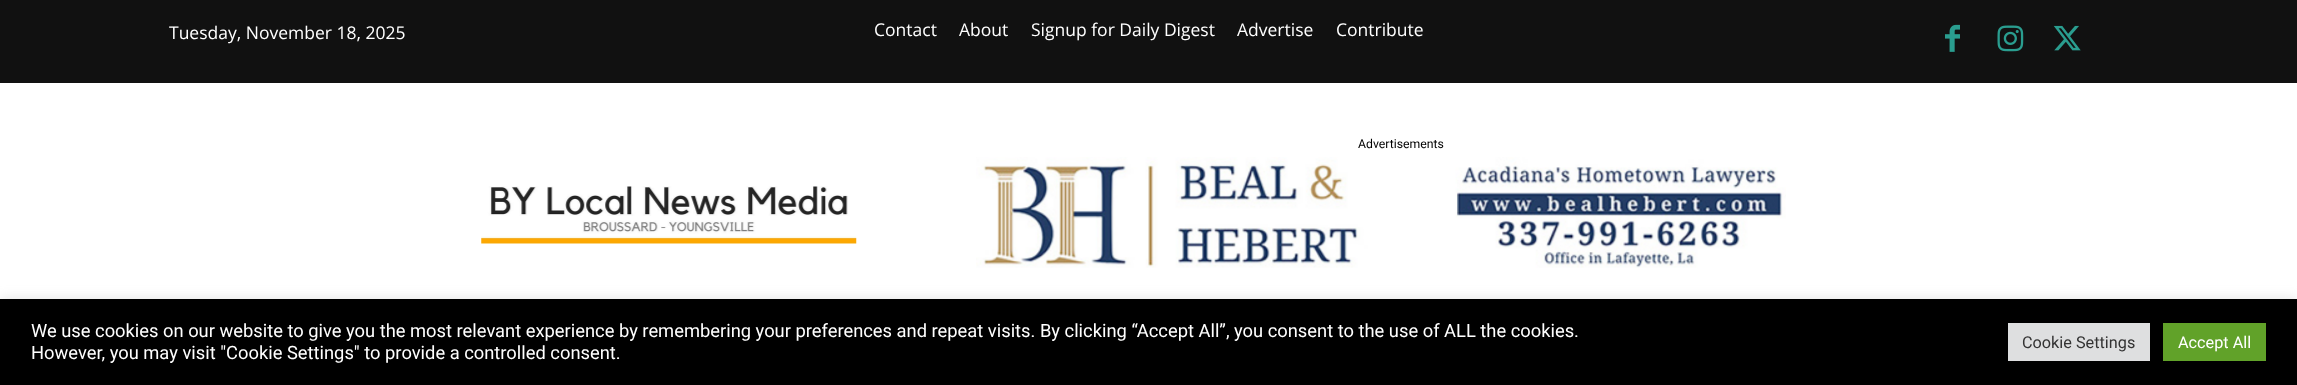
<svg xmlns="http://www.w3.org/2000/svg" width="2297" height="385">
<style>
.a{font:17.5px Open Sans;fill:#fff}
.b{font:12.25px Roboto;fill:#000}
.c{font:18.33px Roboto;fill:#fff}
.d{font:16.25px Roboto;fill:#333}
.e{font:16.25px Roboto;fill:#fff}
</style>
<rect width="100%" height="100%" fill="#fff"/>
<path fill="#111" d="M0 0h2297v83H0z"/>
<image href="1.png" x="1945" y="24" width="15" height="28"/>
<image href="2.png" x="1997" y="25" width="27" height="27"/>
<image href="3.png" x="2053" y="25" width="28" height="26"/>
<image href="4.png" x="976" y="157" width="810" height="111"/>
<image href="5.png" x="481" y="186" width="376" height="58"/>
<path fill="#acabab4d" filter="blur(6px)" d="M0 298h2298v86H0z"/>
<path fill="#000" d="M0 299h2297v86H0z"/>
<path fill="#dedfe0" d="M2008 323h142v38H2008z"/>
<path fill="#61a229" d="M2163 323h103v38H2163z"/>
<text class="a" x="169" y="39">Tuesday, November 18, 2025</text>
<text class="a" x="874" y="36">Contact</text>
<text class="a" x="959" y="36">About</text>
<text class="a" x="1031" y="36">Signup for Daily Digest</text>
<text class="a" x="1237" y="36">Advertise</text>
<text class="a" x="1336" y="36">Contribute</text>
<text class="b" x="1358" y="148">Advertisements</text>
<text class="c" x="31" y="337">We use cookies on our website to give you the most relevant experience by remembering your preferences and repeat visits. By clicking “Accept All”, you consent to the use of ALL the cookies.</text>
<text class="c" x="31" y="359">However, you may visit "Cookie Settings" to provide a controlled consent.</text>
<text class="d" x="2022" y="348">Cookie Settings</text>
<text class="e" x="2178" y="348">Accept All</text>
</svg>
